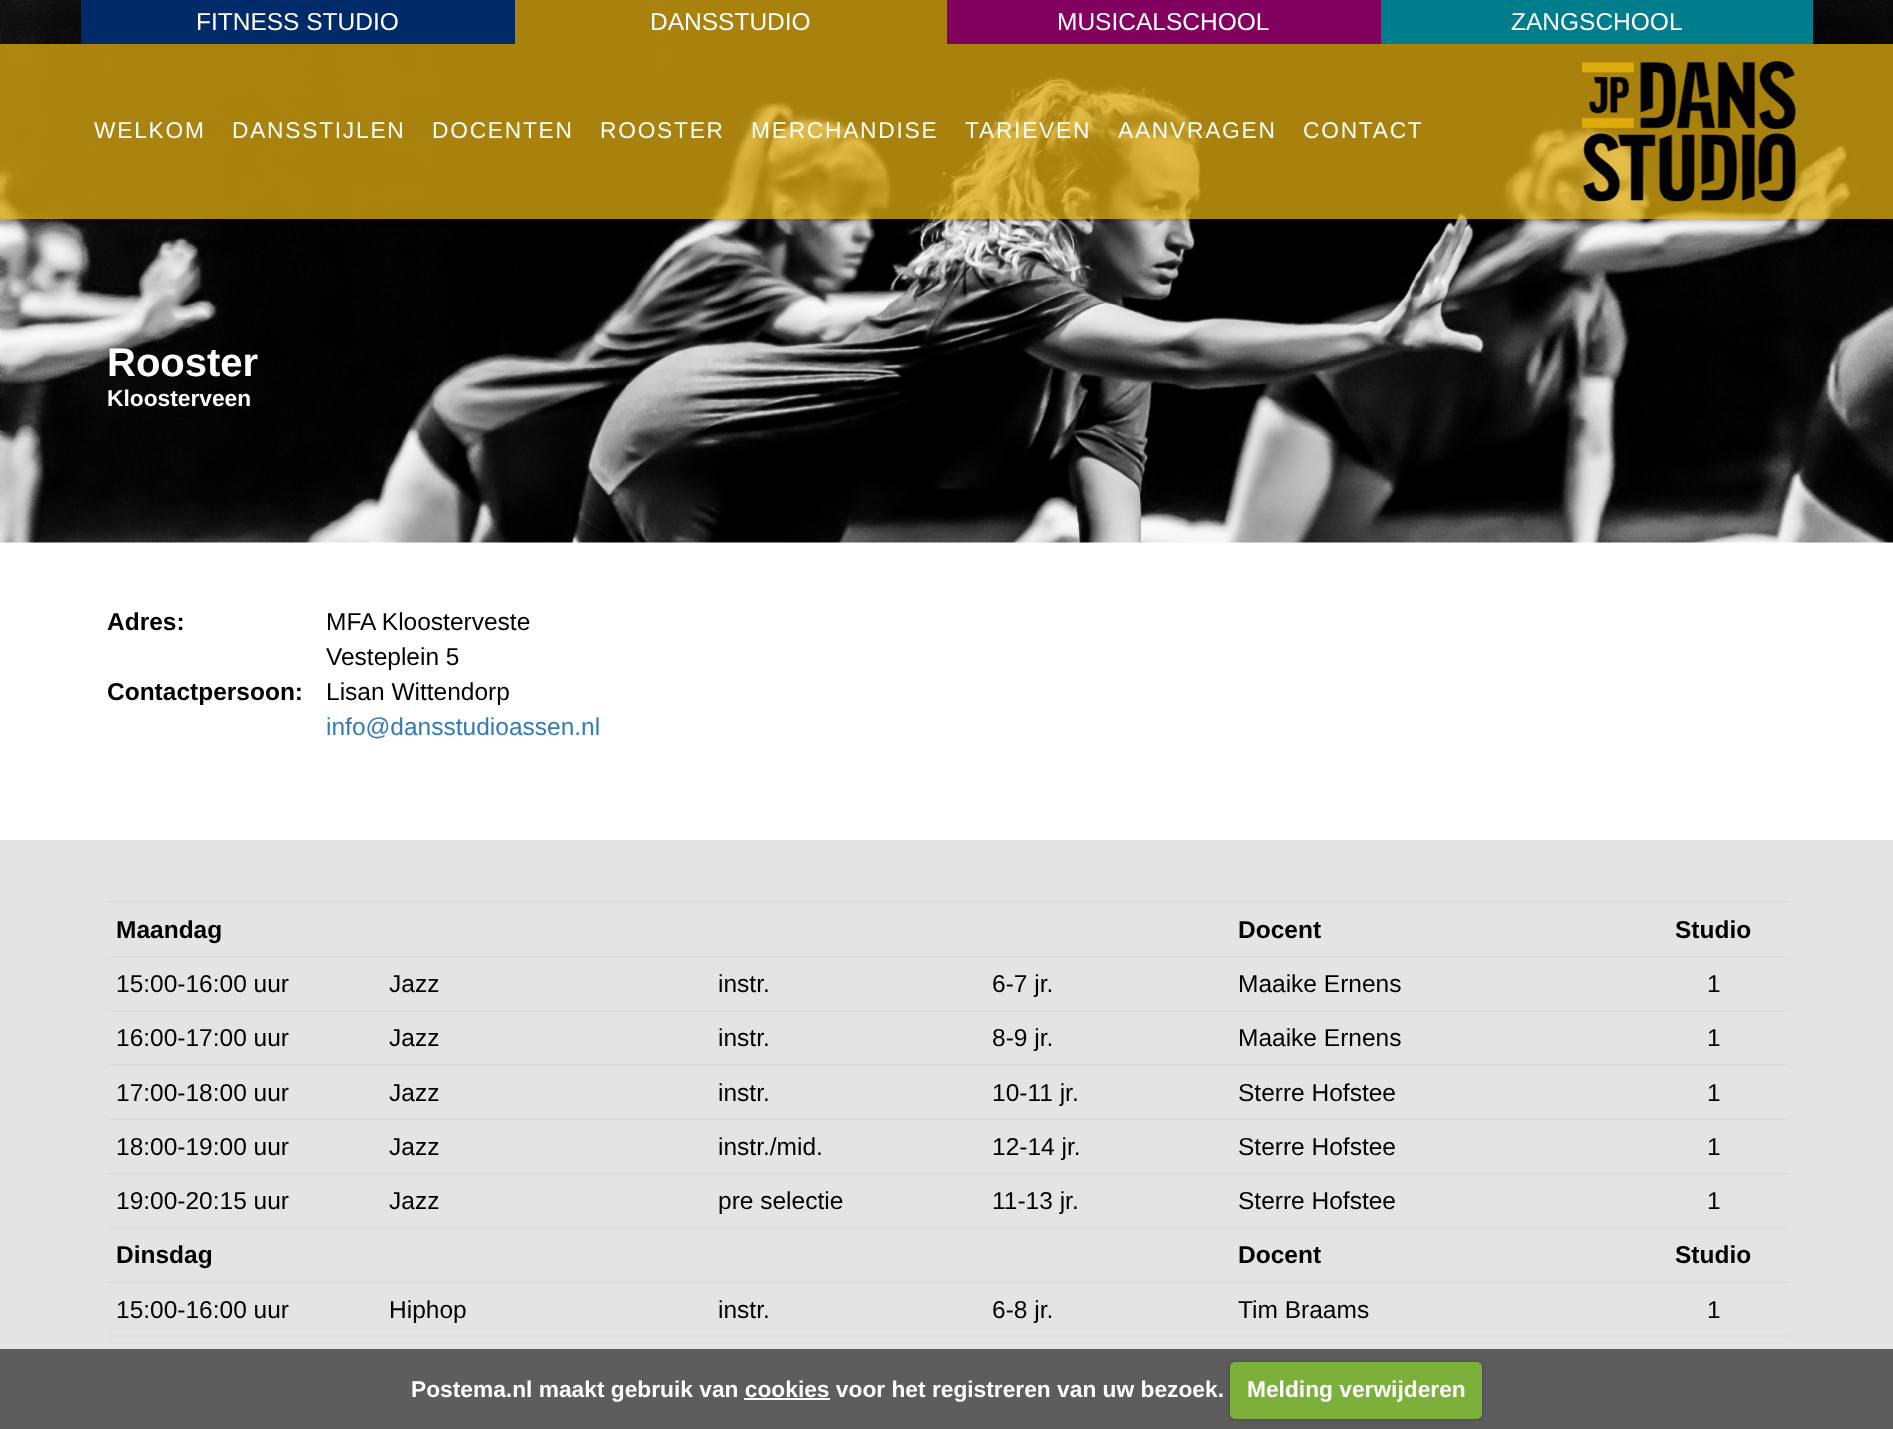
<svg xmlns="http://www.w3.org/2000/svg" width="1893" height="1429">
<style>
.a{font:24.5px Liberation Sans;fill:#fff}
.b{font:22.75px Liberation Sans;letter-spacing:1.75px;fill:#fff}
.c{font:bold 40px Liberation Sans;fill:#fff}
.d{font:bold 22.75px Liberation Sans;fill:#fff}
.e{font:bold 24.5px Liberation Sans;fill:#000}
.f{font:24.5px Liberation Sans;fill:#000}
.g{font:24.5px Liberation Sans;fill:#337ab7}
</style>
<defs>
<clipPath id="clip1"><path d="M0 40h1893v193h-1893zm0 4h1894v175h-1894z" clip-rule="evenodd"/></clipPath>
</defs>
<rect width="100%" height="100%" fill="#fff"/>
<image href="2.png" x="0" y="0" width="1893" height="543"/>
<g clip-path="url(#clip1)">
<path fill="#000000cc" filter="blur(5px)" d="M7 56h1880v161H7z"/>
</g>
<path fill="#002a68" d="M81 0h434v44H81z"/>
<path fill="#e0ad12bf" d="M515 0h432v44H515z"/>
<path fill="#82005e" d="M947 0h434v44H947z"/>
<path fill="#007d8c" d="M1381 0h432v44H1381z"/>
<path fill="#e0ad12bf" d="M0 44h1893v175H0z"/>
<image href="1.png" x="1581" y="61" width="215" height="141"/>
<path fill="#e4e4e4" d="M0 840h1893v509H0z"/>
<path fill="#5d5d5d" d="M0 1349h1893v80H0z"/>
<path fill="#ddd" d="M107 901h1682v2H107z"/>
<path fill="#ddd" d="M107 956h1682v2H107z"/>
<path fill="#ddd" d="M107 1010h1682v2H107z"/>
<path fill="#ddd" d="M107 1064h1682v2H107z"/>
<path fill="#ddd" d="M107 1118h1682v2H107z"/>
<path fill="#ddd" d="M107 1173h1682v2H107z"/>
<path fill="#ddd" d="M107 1227h1682v2H107z"/>
<path fill="#ddd" d="M107 1281h1682v2H107z"/>
<path fill="#ddd" d="M107 1335h1682v2H107z"/>
<rect fill="#00000040" filter="blur(2px)" x="1230" y="1362" width="252" height="57" rx="5"/>
<rect fill="#7daf3b" x="1230" y="1362" width="252" height="57" rx="5"/>
<path fill="#fff" d="M744 1398h86v2H744z"/>
<text class="a" x="196" y="30">FITNESS STUDIO</text>
<text class="a" x="650" y="30">DANSSTUDIO</text>
<text class="a" x="1057" y="30">MUSICALSCHOOL</text>
<text class="a" x="1511" y="30">ZANGSCHOOL</text>
<text class="b" x="94" y="138">WELKOM</text>
<text class="b" x="232" y="138">DANSSTIJLEN</text>
<text class="b" x="432" y="138">DOCENTEN</text>
<text class="b" x="600" y="138">ROOSTER</text>
<text class="b" x="751" y="138">MERCHANDISE</text>
<text class="b" x="965" y="138">TARIEVEN</text>
<text class="b" x="1118" y="138">AANVRAGEN</text>
<text class="b" x="1303" y="138">CONTACT</text>
<text class="c" x="107" y="376">Rooster</text>
<text class="d" x="107" y="406">Kloosterveen</text>
<text class="e" x="107" y="630">Adres:</text>
<text class="f" x="326" y="630">MFA Kloosterveste</text>
<text class="f" x="326" y="665">Vesteplein 5</text>
<text class="e" x="107" y="700">Contactpersoon:</text>
<text class="f" x="326" y="700">Lisan Wittendorp</text>
<text class="g" x="326" y="735">info@dansstudioassen.nl</text>
<text class="e" x="116" y="938">Maandag</text>
<text class="e" x="1238" y="938">Docent</text>
<text class="e" x="1675" y="938">Studio</text>
<text class="f" x="116" y="992">15:00-16:00 uur</text>
<text class="f" x="389" y="992">Jazz</text>
<text class="f" x="718" y="992">instr.</text>
<text class="f" x="992" y="992">6-7 jr.</text>
<text class="f" x="1238" y="992">Maaike Ernens</text>
<text class="f" x="1707" y="992">1</text>
<text class="f" x="116" y="1046">16:00-17:00 uur</text>
<text class="f" x="389" y="1046">Jazz</text>
<text class="f" x="718" y="1046">instr.</text>
<text class="f" x="992" y="1046">8-9 jr.</text>
<text class="f" x="1238" y="1046">Maaike Ernens</text>
<text class="f" x="1707" y="1046">1</text>
<text class="f" x="116" y="1101">17:00-18:00 uur</text>
<text class="f" x="389" y="1101">Jazz</text>
<text class="f" x="718" y="1101">instr.</text>
<text class="f" x="992" y="1101">10-11 jr.</text>
<text class="f" x="1238" y="1101">Sterre Hofstee</text>
<text class="f" x="1707" y="1101">1</text>
<text class="f" x="116" y="1155">18:00-19:00 uur</text>
<text class="f" x="389" y="1155">Jazz</text>
<text class="f" x="718" y="1155">instr./mid.</text>
<text class="f" x="992" y="1155">12-14 jr.</text>
<text class="f" x="1238" y="1155">Sterre Hofstee</text>
<text class="f" x="1707" y="1155">1</text>
<text class="f" x="116" y="1209">19:00-20:15 uur</text>
<text class="f" x="389" y="1209">Jazz</text>
<text class="f" x="718" y="1209">pre selectie</text>
<text class="f" x="992" y="1209">11-13 jr.</text>
<text class="f" x="1238" y="1209">Sterre Hofstee</text>
<text class="f" x="1707" y="1209">1</text>
<text class="e" x="116" y="1263">Dinsdag</text>
<text class="e" x="1238" y="1263">Docent</text>
<text class="e" x="1675" y="1263">Studio</text>
<text class="f" x="116" y="1318">15:00-16:00 uur</text>
<text class="f" x="389" y="1318">Hiphop</text>
<text class="f" x="718" y="1318">instr.</text>
<text class="f" x="992" y="1318">6-8 jr.</text>
<text class="f" x="1238" y="1318">Tim Braams</text>
<text class="f" x="1707" y="1318">1</text>
<text class="d" x="411" y="1397">Postema.nl maakt gebruik van cookies voor het registreren van uw bezoek.</text>
<text class="d" x="1247" y="1397">Melding verwijderen</text>
</svg>
